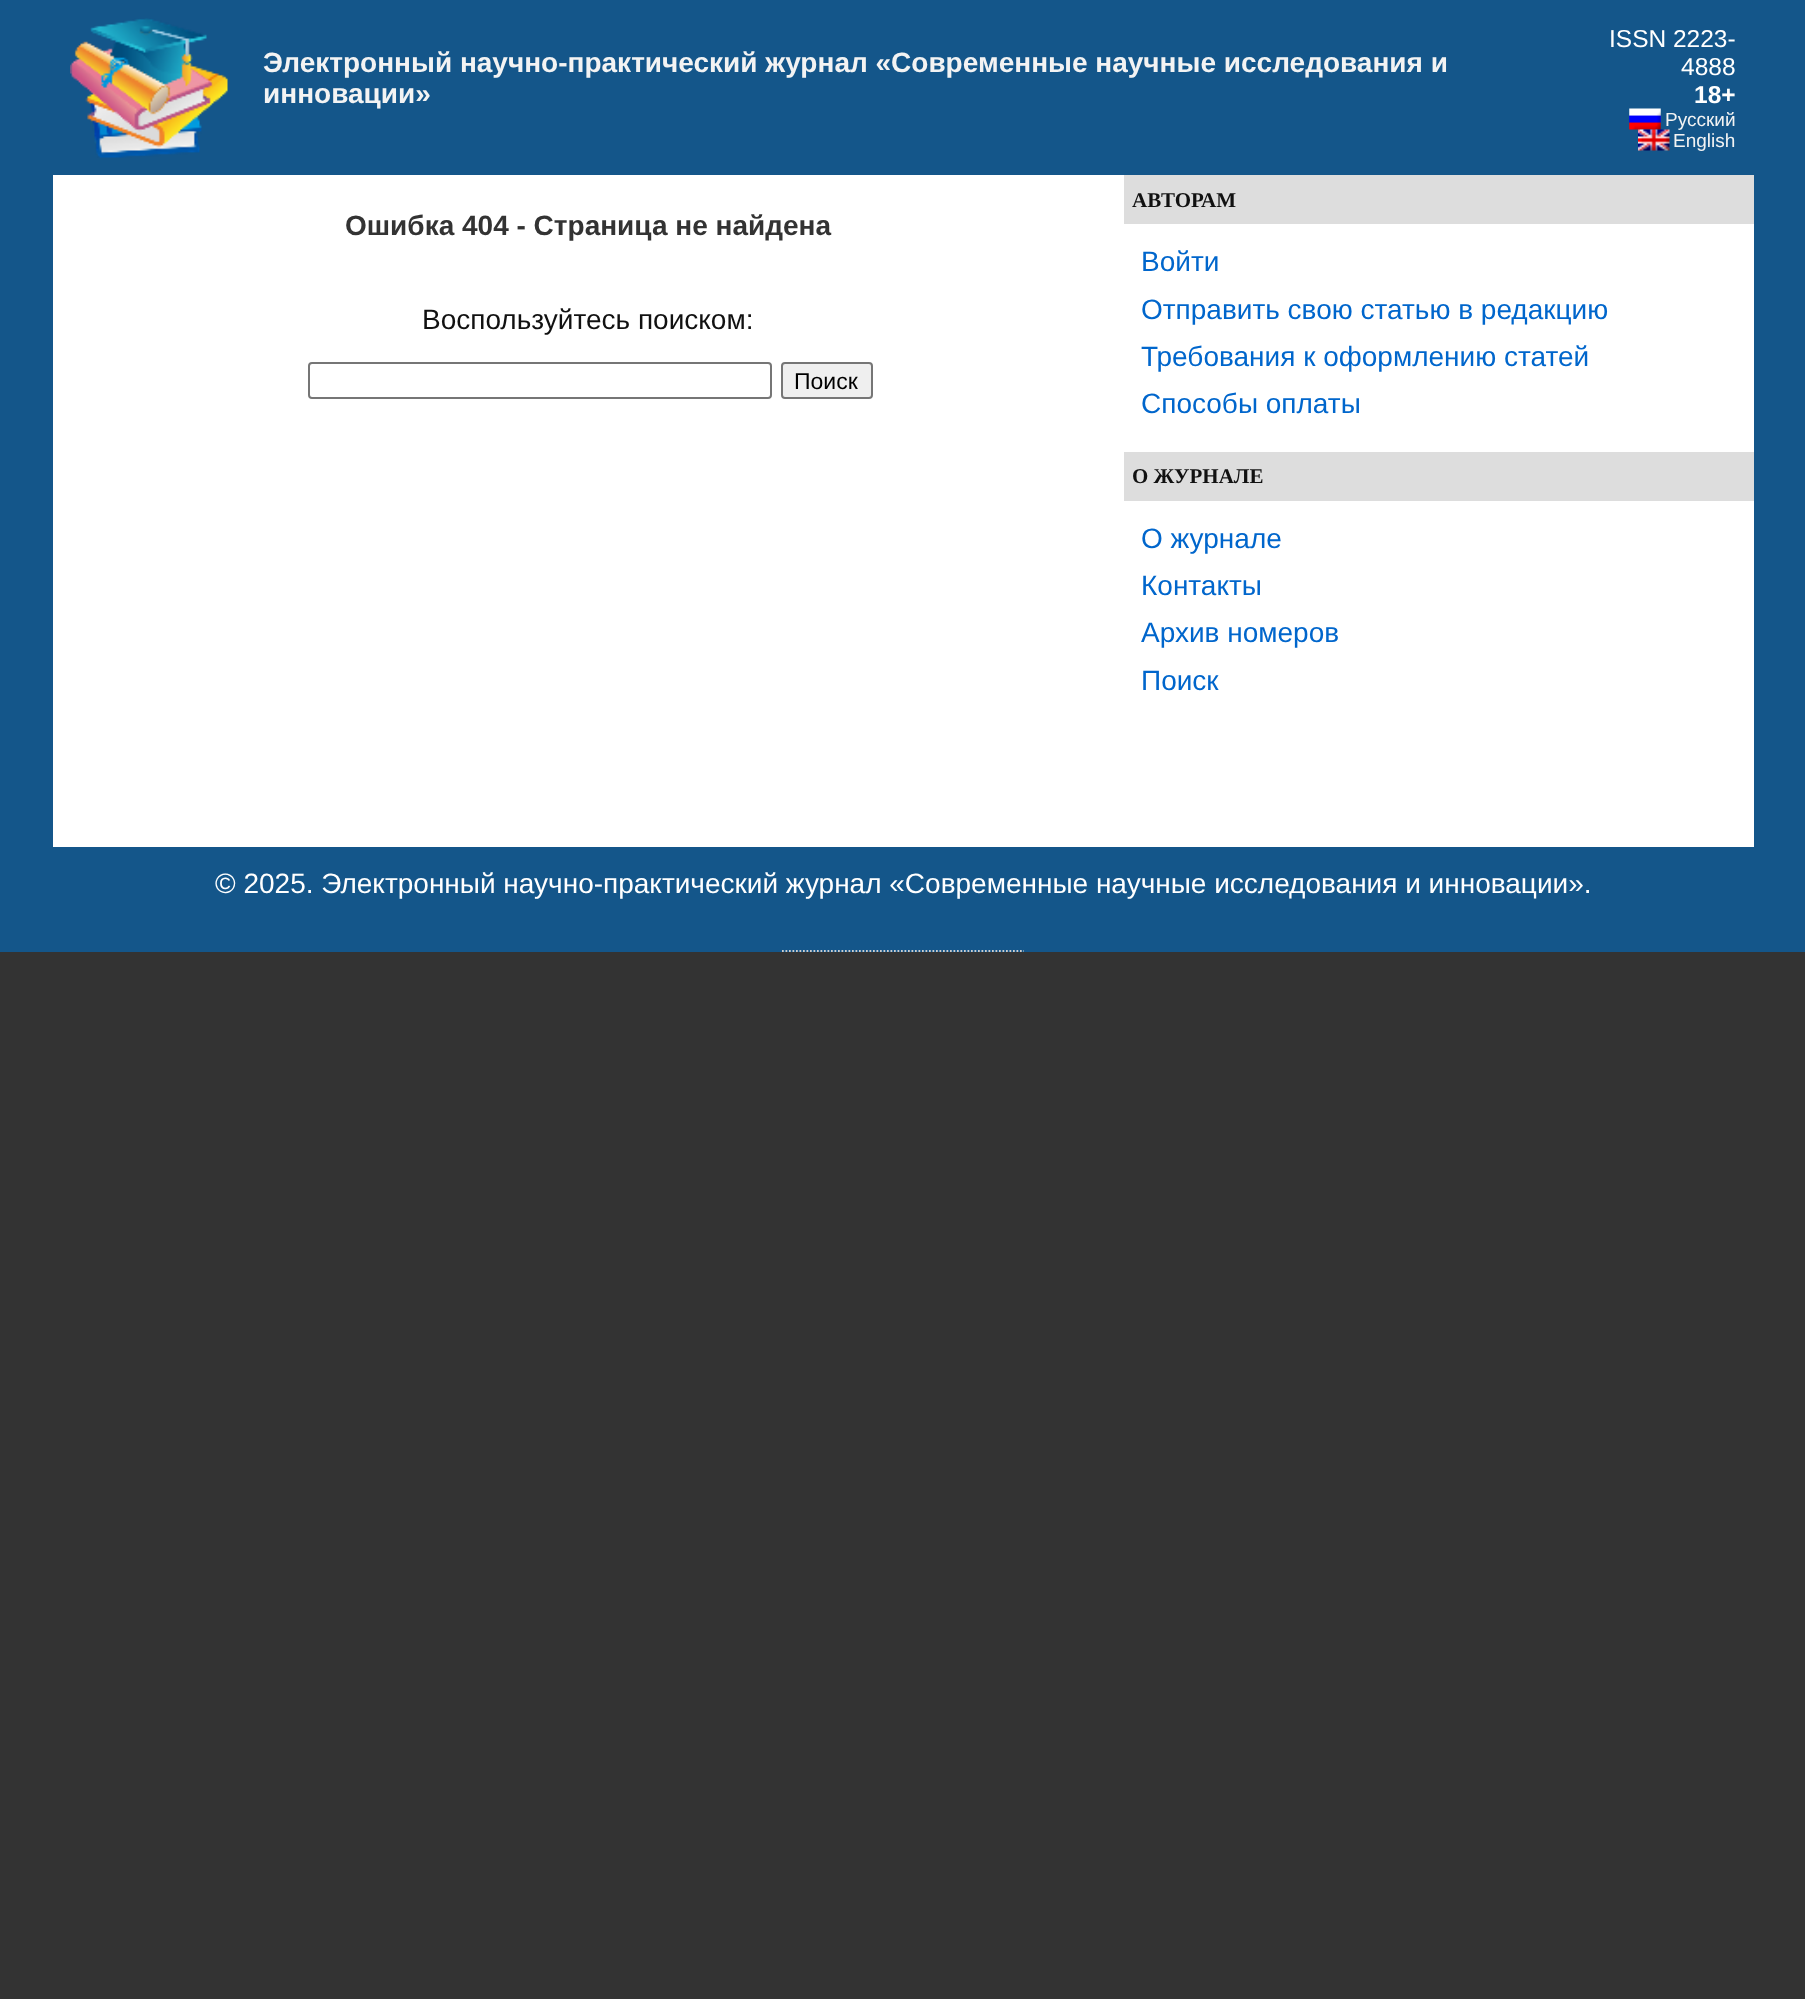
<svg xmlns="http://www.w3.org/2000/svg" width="1805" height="1999">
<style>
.a{font:bold 28px Liberation Sans;fill:#f3f3f3}
.b{font:24.5px Liberation Sans;fill:#fff}
.c{font:bold 24.5px Liberation Sans;fill:#fff}
.d{font:19px Liberation Sans;fill:#f3f3f3}
.e{font:bold 28px Liberation Sans;fill:#333}
.f{font:28px Liberation Sans;fill:#111}
.g{font:23px Liberation Sans;fill:#000}
.h{font:bold 21px Liberation Serif;fill:#111}
.i{font:28px Liberation Sans;fill:#06c}
.j{font:28px Liberation Sans;fill:#fff}
</style>
<rect width="100%" height="100%" fill="#333"/>
<path fill="#fff" d="M53 175h1701v672H53z"/>
<path fill="#14568a" d="M1754 0h51v952H1754z"/>
<path fill="#14568a" d="M0 0h53v952H0z"/>
<path fill="#14568a" d="M53 0h1701v175H53z"/>
<image href="1.png" x="70" y="18" width="158" height="140"/>
<image href="2.png" x="1629" y="108" width="32" height="22"/>
<rect fill="none" stroke="#767676" stroke-width="2" x="309" y="363" width="462" height="35" rx="3"/>
<rect fill="#efefef" stroke="#767676" stroke-width="2" x="782" y="363" width="90" height="35" rx="3"/>
<path fill="#ddd" d="M1124 175h630v49H1124z"/>
<path fill="#ddd" d="M1124 452h630v49H1124z"/>
<path fill="#14568a" d="M53 847h1701v105H53z"/>
<path fill="none" stroke="#ccc" stroke-width="1.8" stroke-dasharray="1.75 1.75" d="M782 951h242"/>
<text class="a" x="263" y="72">Электронный научно-практический журнал «Современные научные исследования и</text>
<text class="a" x="263" y="103">инновации»</text>
<text class="b" x="1609" y="47">ISSN 2223-</text>
<text class="b" x="1681" y="75">4888</text>
<text class="c" x="1694" y="103">18+</text>
<text class="d" x="1665" y="126">Русский</text>
<image href="3.png" x="1638" y="129" width="32" height="22"/>
<text class="d" x="1673" y="147">English</text>
<text class="e" x="345" y="235">Ошибка 404 - Страница не найдена</text>
<text class="f" x="422" y="329">Воспользуйтесь поиском:</text>
<text class="g" x="794" y="389">Поиск</text>
<text class="h" x="1132" y="207">АВТОРАМ</text>
<text class="i" x="1141" y="271">Войти</text>
<text class="i" x="1141" y="319">Отправить свою статью в редакцию</text>
<text class="i" x="1141" y="366">Требования к оформлению статей</text>
<text class="i" x="1141" y="413">Способы оплаты</text>
<text class="h" x="1132" y="483">О ЖУРНАЛЕ</text>
<text class="i" x="1141" y="548">О журнале</text>
<text class="i" x="1141" y="595">Контакты</text>
<text class="i" x="1141" y="642">Архив номеров</text>
<text class="i" x="1141" y="690">Поиск</text>
<text class="j" x="215" y="893">© 2025. Электронный научно-практический журнал «Современные научные исследования и инновации».</text>
</svg>
